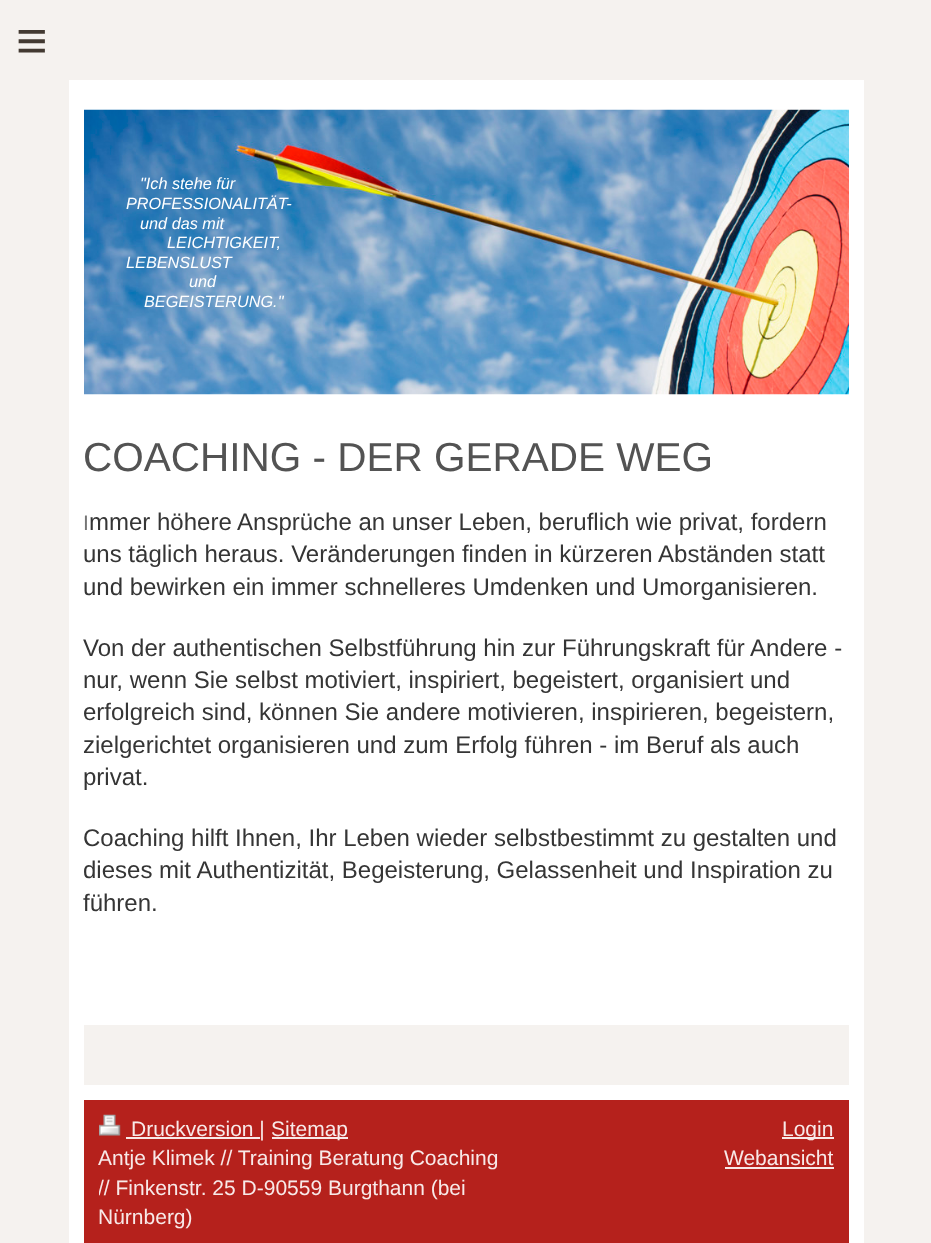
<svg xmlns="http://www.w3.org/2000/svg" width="931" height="1243">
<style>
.a{font:54px Liberation Sans;letter-spacing:16px;fill:#433a32}
.b{font:italic 16.25px Liberation Sans;fill:#fff}
.c{font:40.5px Liberation Sans;fill:#535353}
.d{font:21px Liberation Sans;fill:#757575}
.e{font:24px Liberation Sans;fill:#353535}
.f{font:21px Liberation Sans;fill:#f8e9e8}
</style>
<defs>
<clipPath id="clip1"><path d="M99 1115h735v118H99z"/></clipPath>
</defs>
<rect width="100%" height="100%" fill="#f5f2ef"/>
<path fill="#fff" d="M69 80h795v1163H69z"/>
<image href="1.png" x="84" y="109" width="765" height="286"/>
<path fill="#f5f2ef" d="M84 1025h765v60H84z"/>
<path fill="#b5211c" d="M84 1100h765v143H84z"/>
<image href="2.png" x="99" y="1114" width="22" height="22"/>
<path fill="#f8e9e8" d="M126 1137h134v2H126z"/>
<path fill="#f8e9e8" d="M272 1137h76v2H272z"/>
<path fill="#f8e9e8" d="M782 1137h52v2H782z"/>
<path fill="#f8e9e8" d="M725 1167h109v2H725z"/>
<text class="a" x="16" y="59">≡</text>
<text class="b" x="140" y="189">"Ich stehe für</text>
<text class="b" x="126" y="209">PROFESSIONALITÄT-</text>
<text class="b" x="140" y="229">und das mit</text>
<text class="b" x="167" y="248">LEICHTIGKEIT,</text>
<text class="b" x="126" y="268">LEBENSLUST</text>
<text class="b" x="189" y="287">und</text>
<text class="b" x="144" y="307">BEGEISTERUNG."</text>
<text class="c" x="83" y="471">COACHING - DER GERADE WEG</text>
<text class="d" x="83" y="530">I</text>
<text class="e" x="89" y="530">mmer höhere Ansprüche an unser Leben, beruflich wie privat, fordern</text>
<text class="e" x="83" y="562">uns täglich heraus. Veränderungen finden in kürzeren Abständen statt</text>
<text class="e" x="83" y="595">und bewirken ein immer schnelleres Umdenken und Umorganisieren.</text>
<text class="e" x="83" y="656">Von der authentischen Selbstführung hin zur Führungskraft für Andere -</text>
<text class="e" x="83" y="688">nur, wenn Sie selbst motiviert, inspiriert, begeistert, organisiert und</text>
<text class="e" x="83" y="720">erfolgreich sind, können Sie andere motivieren, inspirieren, begeistern,</text>
<text class="e" x="83" y="753">zielgerichtet organisieren und zum Erfolg führen - im Beruf als auch</text>
<text class="e" x="83" y="785">privat.</text>
<text class="e" x="83" y="846">Coaching hilft Ihnen, Ihr Leben wieder selbstbestimmt zu gestalten und</text>
<text class="e" x="83" y="878">dieses mit Authentizität, Begeisterung, Gelassenheit und Inspiration zu</text>
<text class="e" x="83" y="911">führen.</text>
<text class="f" x="131" y="1136">Druckversion |</text>
<text class="f" x="271" y="1136">Sitemap</text>
<text class="f" x="98" y="1165">Antje Klimek // Training Beratung Coaching</text>
<g clip-path="url(#clip1)">
<text class="f" x="98" y="1195">// Finkenstr. 25 D-90559 Burgthann (bei</text>
</g>
<text class="f" x="98" y="1224">Nürnberg)</text>
<text class="f" x="782" y="1136">Login</text>
<text class="f" x="724" y="1165">Webansicht</text>
</svg>
